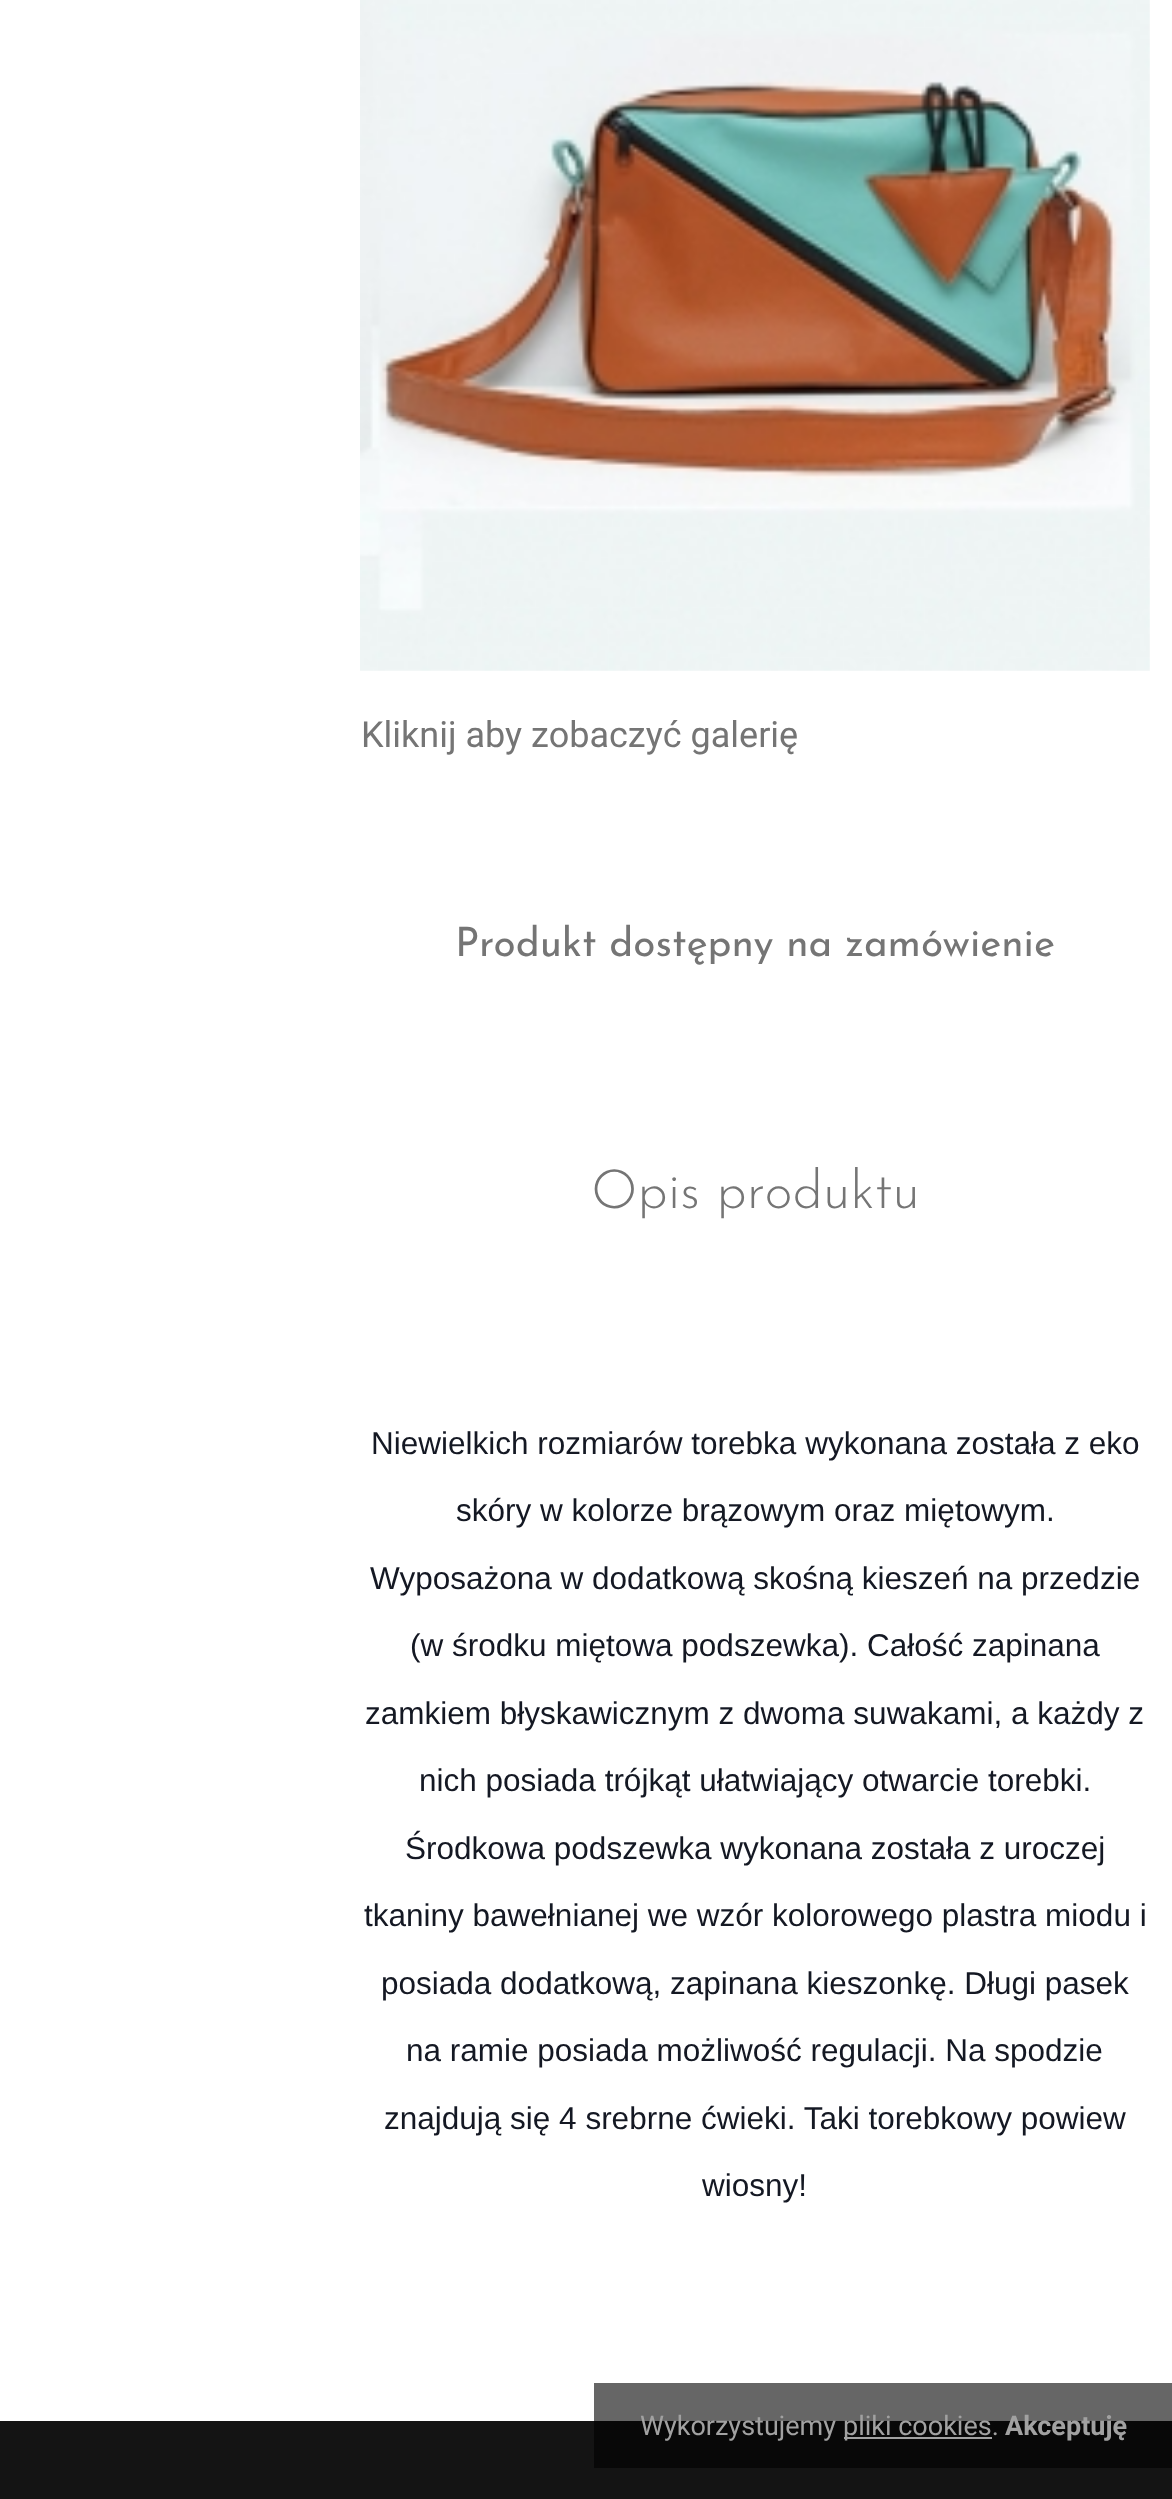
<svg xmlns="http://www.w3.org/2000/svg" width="1172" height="2499">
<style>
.a{font:36px Roboto;fill:#757575}
.b{font:40.5px Josefin Sans;fill:#757575}
.c{font:300 54px Josefin Sans;fill:#757575}
.d{font:31.5px Liberation Sans;fill:#141823}
.e{font:27px Roboto;fill:#a1a1a1}
.f{font:bold 27px Roboto;fill:#a1a1a1}
</style>
<rect width="100%" height="100%" fill="#fff"/>
<path fill="#666" d="M594 2383h578v38H594z"/>
<image href="1.png" x="360" y="0" width="790" height="671"/>
<path fill="#141414" d="M0 2421h1172v78H0z"/>
<path fill="#080808" d="M594 2421h578v47H594z"/>
<path fill="#a1a1a1" d="M844 2437h148v2H844z"/>
<text class="a" x="361" y="747">Kliknij aby zobaczyć galerię</text>
<text class="b" x="455" y="956">Produkt dostępny na zamówienie</text>
<text class="c" x="591" y="1208">Opis produktu</text>
<text class="d" x="371" y="1454">Niewielkich rozmiarów torebka wykonana została z eko</text>
<text class="d" x="456" y="1521">skóry w kolorze brązowym oraz miętowym.</text>
<text class="d" x="370" y="1589">Wyposażona w dodatkową skośną kieszeń na przedzie</text>
<text class="d" x="410" y="1656">(w środku miętowa podszewka). Całość zapinana</text>
<text class="d" x="365" y="1724">zamkiem błyskawicznym z dwoma suwakami, a każdy z</text>
<text class="d" x="419" y="1791">nich posiada trójkąt ułatwiający otwarcie torebki.</text>
<text class="d" x="405" y="1859">Środkowa podszewka wykonana została z uroczej</text>
<text class="d" x="364" y="1926">tkaniny bawełnianej we wzór kolorowego plastra miodu i</text>
<text class="d" x="381" y="1994">posiada dodatkową, zapinana kieszonkę. Długi pasek</text>
<text class="d" x="406" y="2061">na ramie posiada możliwość regulacji. Na spodzie</text>
<text class="d" x="384" y="2129">znajdują się 4 srebrne ćwieki. Taki torebkowy powiew</text>
<text class="d" x="702" y="2196">wiosny!</text>
<text class="e" x="640" y="2435">Wykorzystujemy</text>
<text class="e" x="843" y="2435">pliki cookies.</text>
<text class="f" x="1005" y="2435">Akceptuję</text>
</svg>
